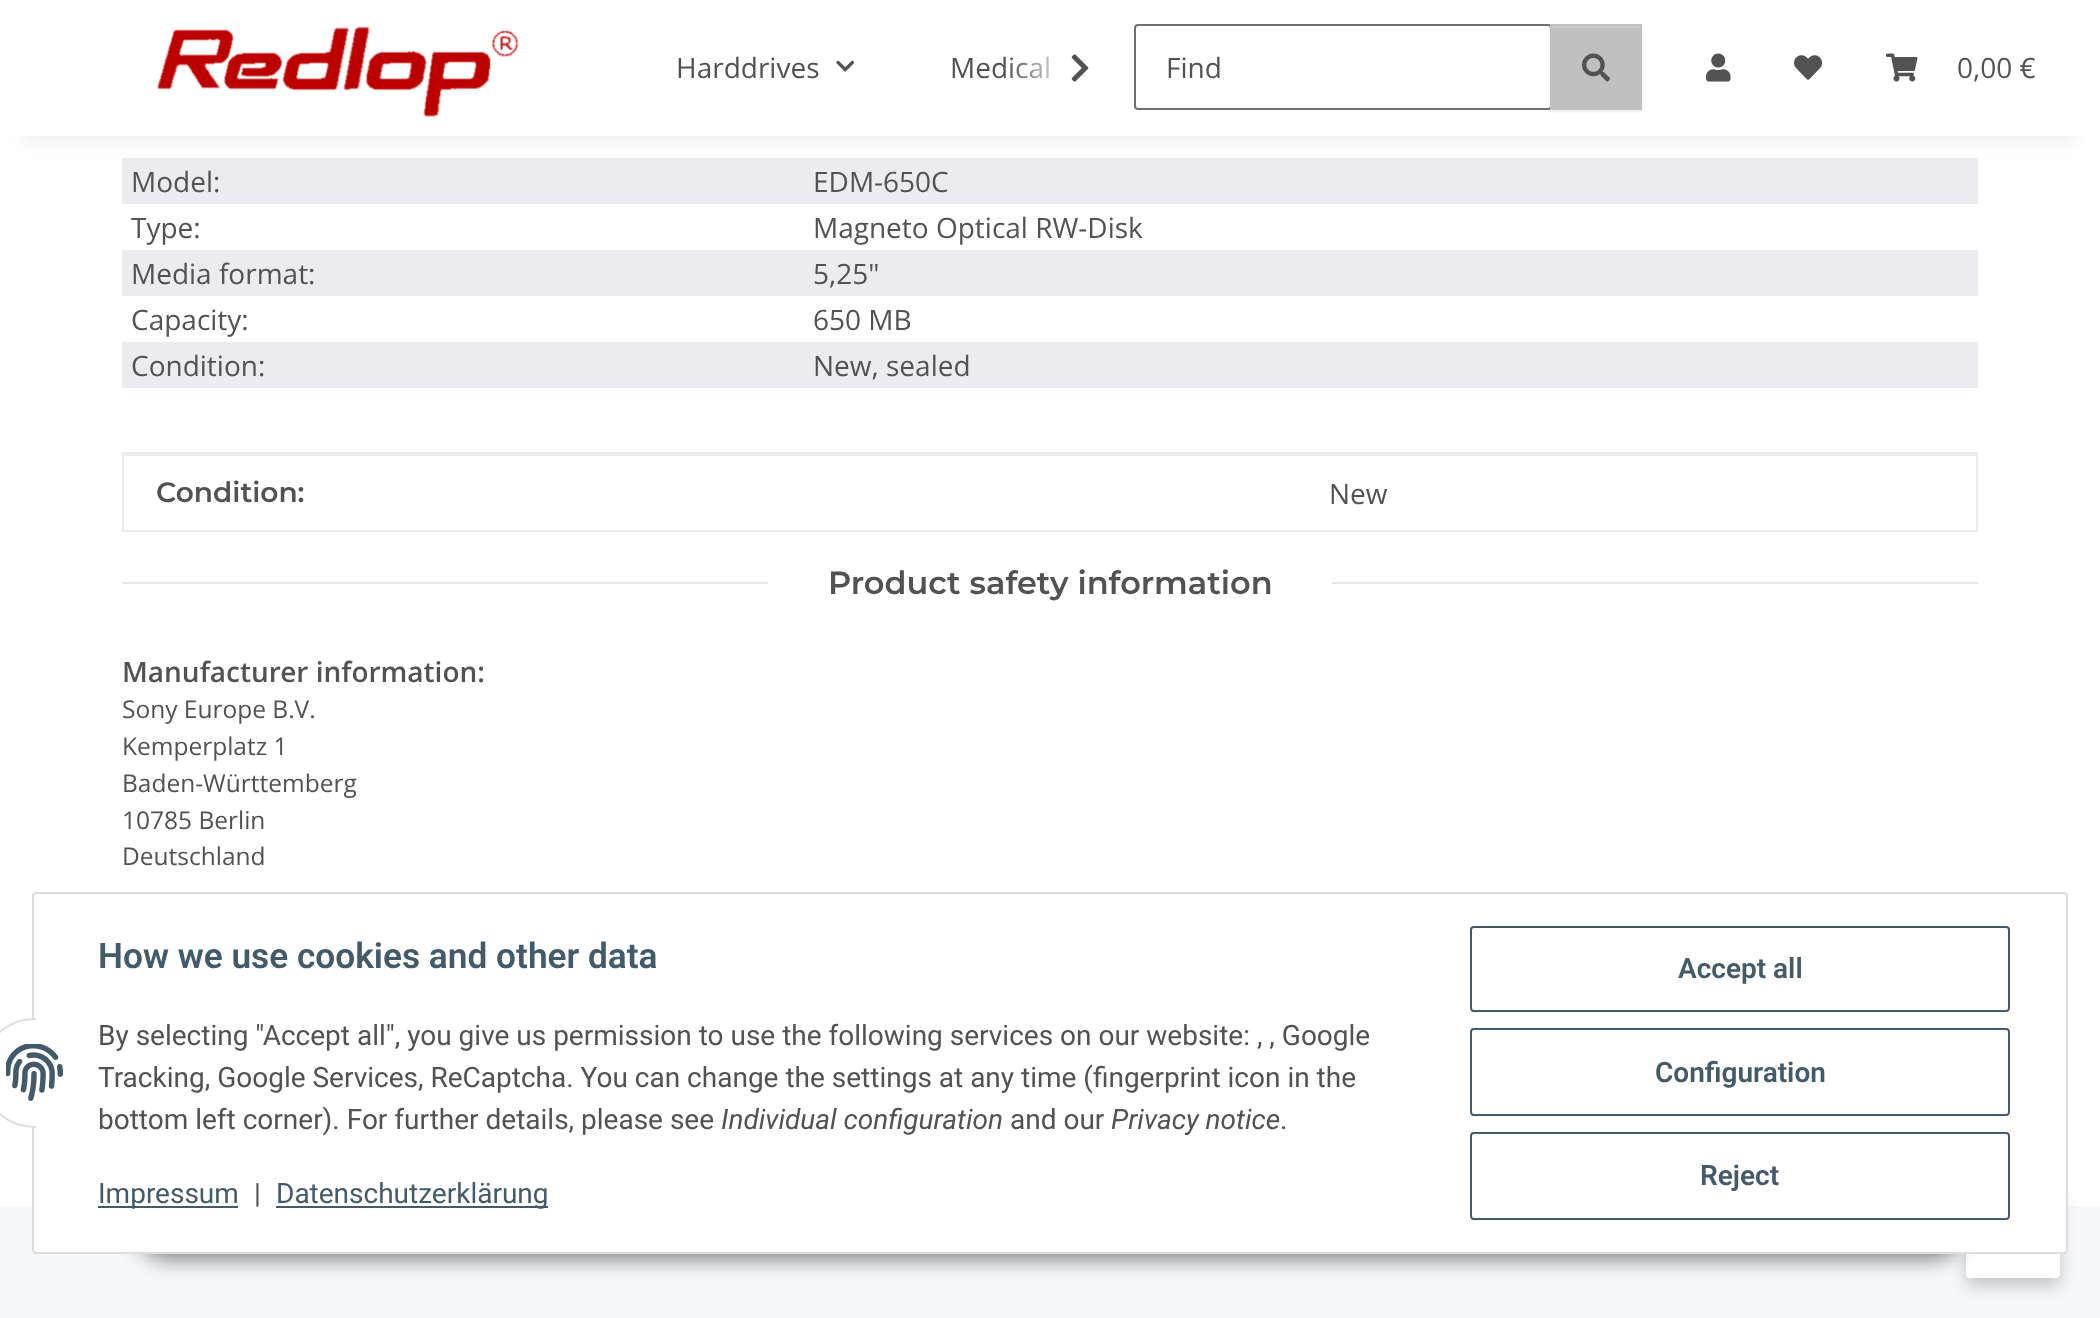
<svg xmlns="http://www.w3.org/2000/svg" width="2100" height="1318">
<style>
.a{font:28px Open Sans;fill:#525252}
.b{font:600 28px Montserrat;fill:#525252}
.c{font:600 32px Montserrat;fill:#525252}
.d{font:600 28px Open Sans;fill:#525252}
.e{font:24.5px Open Sans;fill:#525252}
.f{font:600 35.25px Roboto;fill:#435a6b}
.g{font:28px Roboto;fill:#525252}
.h{font:italic 28px Roboto;fill:#525252}
.i{font:28px Roboto;fill:#435a6b}
.j{font:600 28px Roboto;fill:#435a6b}
</style>
<defs>
<linearGradient id="g1" gradientUnits="userSpaceOnUse" x1="1006" y1="68" x2="1102" y2="68"><stop offset="0" stop-color="#fff" stop-opacity="0.01"/><stop offset="0.7" stop-color="#fff"/></linearGradient>
</defs>
<rect width="100%" height="100%" fill="#f5f7fa"/>
<path fill="#fff" d="M0 136h2100v1070H0z"/>
<path fill="#ebebf0" d="M122 158h1856v46H122z"/>
<path fill="#0000000f" filter="blur(9px)" d="M24 56h2052v88H24z"/>
<path fill="#fff" d="M0 0h2100v136H0z"/>
<image href="1.png" x="157" y="26" width="362" height="92"/>
<image href="2.png" x="836" y="60" width="19" height="12"/>
<image href="3.png" x="1071" y="54" width="18" height="28"/>
<rect fill="none" stroke="#707070" stroke-width="2" x="1135" y="25" width="416" height="84" rx="3"/>
<path fill="#00000012" filter="blur(1px)" d="M1550 26h92v86H1550z"/>
<path fill="#c0c0c0" d="M1550 24h92v86H1550z"/>
<path fill="#c9c9c9" d="M1552 26h88v2H1552z"/>
<image href="4.png" x="1582" y="53" width="28" height="29"/>
<image href="5.png" x="1706" y="53" width="25" height="29"/>
<image href="6.png" x="1794" y="55" width="29" height="25"/>
<image href="7.png" x="1886" y="53" width="32" height="29"/>
<path fill="#ebebf0" d="M122 250h1856v46H122z"/>
<path fill="#ebebf0" d="M122 342h1856v46H122z"/>
<path fill="#ebebeb" d="M122 452h1856v4H122z"/>
<path fill="#ebebeb" d="M1976 454h2v78H1976z"/>
<path fill="#ebebeb" d="M122 530h1856v2H122z"/>
<path fill="#ebebeb" d="M122 454h2v78H122z"/>
<path fill="#e6e6e6" d="M122 582h646v2H122z"/>
<path fill="#e6e6e6" d="M1332 582h646v2H1332z"/>
<rect fill="#00000033" filter="blur(8px)" x="1966" y="1198" width="94" height="88" rx="4"/>
<rect fill="#fff" x="1966" y="1190" width="94" height="88" rx="4"/>
<rect fill="#00000073" filter="blur(10px)" x="136" y="1196" width="1828" height="64" rx="32"/>
<rect fill="#fff" stroke="#ddd" stroke-width="2" x="33" y="893" width="2034" height="360" rx="3"/>
<circle fill="#fff" stroke="#ddd" stroke-width="2" cx="35" cy="1073" r="54"/>
<path fill="#fff" d="M36 1018h54v110H36z"/>
<image href="8.png" x="6" y="1044" width="57" height="57"/>
<path fill="#435a6b" d="M98 1206h140v2H98z"/>
<path fill="#435a6b" d="M276 1206h272v2H276z"/>
<rect fill="none" stroke="#435a6b" stroke-width="2" x="1471" y="927" width="538" height="84" rx="3"/>
<rect fill="none" stroke="#435a6b" stroke-width="2" x="1471" y="1029" width="538" height="86" rx="3"/>
<rect fill="none" stroke="#435a6b" stroke-width="2" x="1471" y="1133" width="538" height="86" rx="3"/>
<text class="a" x="676" y="78">Harddrives</text>
<text class="a" x="950" y="78">Medical</text>
<path fill="url(#g1)" d="M1010 56h39v23H1010z"/>
<text class="a" x="1166" y="78">Find</text>
<text class="a" x="1957" y="78">0,00 €</text>
<text class="a" x="131" y="192">Model:</text>
<text class="a" x="813" y="192">EDM-650C</text>
<text class="a" x="131" y="238">Type:</text>
<text class="a" x="813" y="238">Magneto Optical RW-Disk</text>
<text class="a" x="131" y="284">Media format:</text>
<text class="a" x="813" y="284">5,25"</text>
<text class="a" x="131" y="330">Capacity:</text>
<text class="a" x="813" y="330">650 MB</text>
<text class="a" x="131" y="376">Condition:</text>
<text class="a" x="813" y="376">New, sealed</text>
<text class="b" x="156" y="502">Condition:</text>
<text class="a" x="1329" y="504">New</text>
<text class="c" x="828" y="594">Product safety information</text>
<text class="d" x="122" y="682">Manufacturer information:</text>
<text class="e" x="122" y="718">Sony Europe B.V.</text>
<text class="e" x="122" y="755">Kemperplatz 1</text>
<text class="e" x="122" y="792">Baden-Württemberg</text>
<text class="e" x="122" y="829">10785 Berlin</text>
<text class="e" x="122" y="865">Deutschland</text>
<text class="f" x="98" y="968">How we use cookies and other data</text>
<text class="g" x="98" y="1045">By selecting "Accept all", you give us permission to use the following services on our website: , , Google</text>
<text class="g" x="98" y="1087">Tracking, Google Services, ReCaptcha. You can change the settings at any time (fingerprint icon in the</text>
<text class="g" x="98" y="1129">bottom left corner). For further details, please see</text>
<text class="h" x="721" y="1129">Individual configuration</text>
<text class="g" x="1010" y="1129">and our</text>
<text class="h" x="1111" y="1129">Privacy notice</text>
<text class="g" x="1280" y="1129">.</text>
<text class="i" x="98" y="1203">Impressum</text>
<text class="g" x="254" y="1203">|</text>
<text class="i" x="276" y="1203">Datenschutzerklärung</text>
<text class="j" x="1678" y="978">Accept all</text>
<text class="j" x="1655" y="1082">Configuration</text>
<text class="j" x="1700" y="1185">Reject</text>
</svg>
